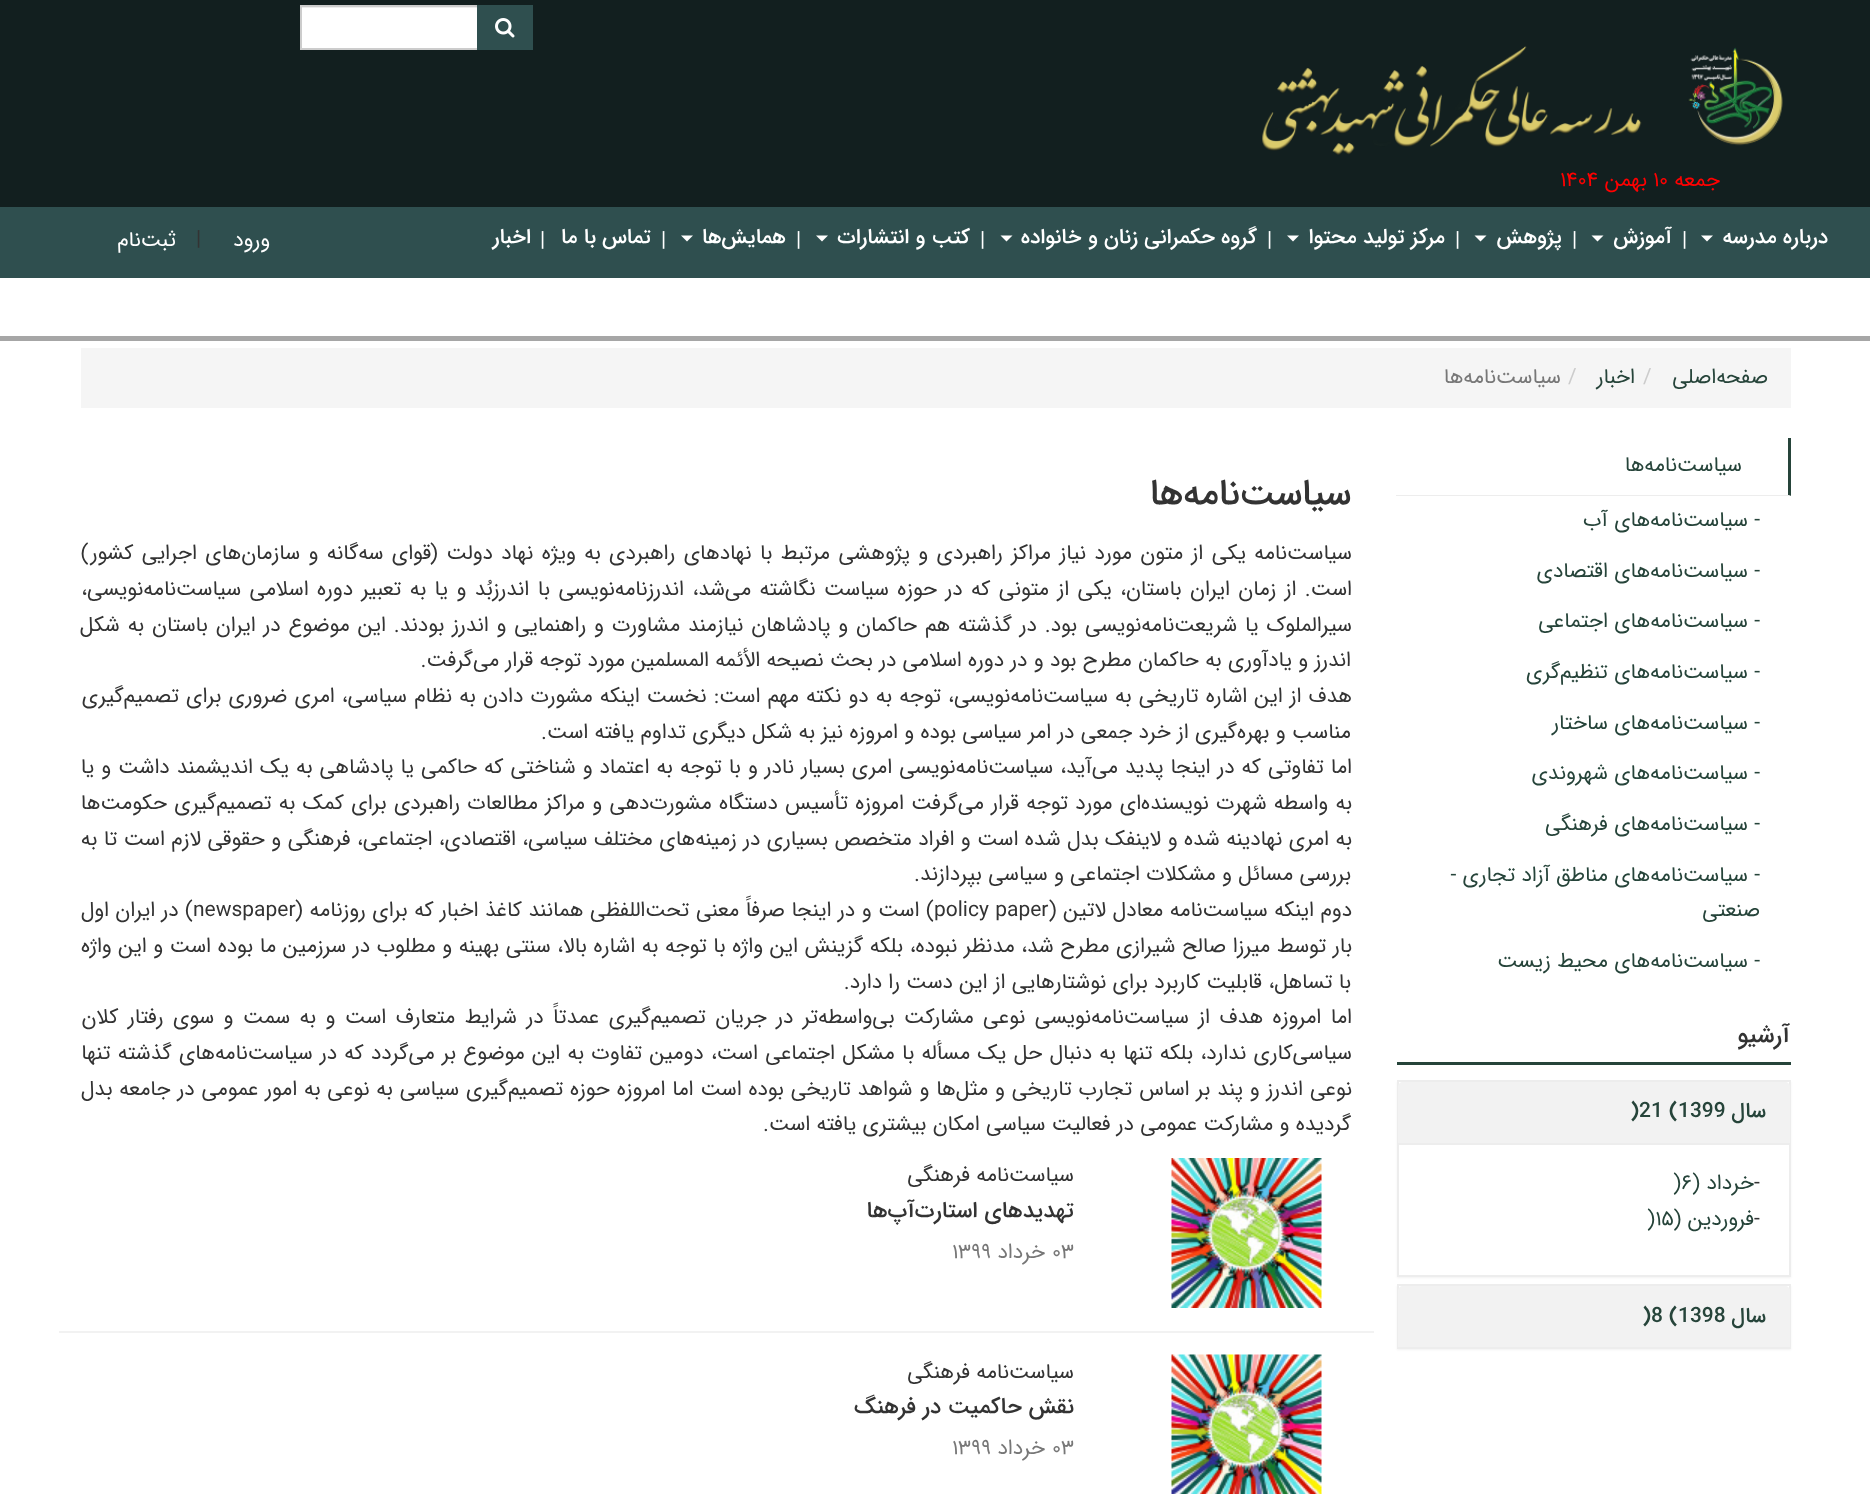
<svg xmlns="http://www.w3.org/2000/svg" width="1870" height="1494">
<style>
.a{font:21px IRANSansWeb;direction:rtl;fill:#ff0001}
.b{font:21px IRANSansWeb;fill:#ff0001}
.c{font:500 21px IRANSansWeb;direction:rtl;fill:#fff}
.d{font:21px IRANSansWeb;fill:#fff}
.e{font:21px IRANSansWeb;direction:rtl;fill:#fff}
.f{font:21px IRANSansWeb;fill:#333}
.g{font:21px IRANSansWeb;direction:rtl;fill:#26443a}
.h{font:21px IRANSansWeb;fill:#ccc}
.i{font:21px IRANSansWeb;direction:rtl;fill:#777}
.j{font:500 24px IRANSansWeb;direction:rtl;fill:#333}
.k{font:500 21px IRANSansWeb;direction:rtl;fill:#26443a}
.l{font:500 21px IRANSansWeb;fill:#26443a}
.m{font:21px IRANSansWeb;fill:#26443a}
.n{font:500 36px IRANSansWeb;direction:rtl;fill:#333}
.o{font:21px IRANSansWeb;direction:rtl;fill:#333}
.p{font:500 22.5px IRANSansWeb;direction:rtl;fill:#333}
.q{font:21px IRANSansWeb;fill:#777}
</style>
<rect width="100%" height="100%" fill="#fff"/>
<path fill="#121f1f" d="M0 0h1870v207H0z"/>
<path fill="#fff" d="M302 8h175v40H302z"/>
<path fill="#ececec" d="M302 7h175v1H302z"/>
<path fill="none" stroke="#ccc" stroke-width="2" d="M301 6h177v43H301z"/>
<path fill="#2f4f4f" d="M477 5h56v45H477z"/>
<image href="1.png" x="495" y="18" width="20" height="20"/>
<image href="2.png" x="1262" y="46" width="521" height="109"/>
<path fill="#a6a6a6" d="M0 336h1870v5H0z"/>
<path fill="#2f4f4f" d="M0 207h1870v71H0z"/>
<path fill="#fff" d="M1701 235.5h12l-6 6z"/>
<path fill="#fff" d="M1591.5 235.5h12l-6 6z"/>
<path fill="#fff" d="M1474.5 235.5h12l-6 6z"/>
<path fill="#fff" d="M1287 235.5h12l-6 6z"/>
<path fill="#fff" d="M1000.5 235.5h12l-6 6z"/>
<path fill="#fff" d="M816 235.5h12l-6 6z"/>
<path fill="#fff" d="M681 235.5h12l-6 6z"/>
<path fill="#f5f5f5" d="M81 348h1710v60H81z"/>
<path fill="#26443a" d="M1791 438v58l-3-1v-57z"/>
<path fill="#ededed" d="M1791 496h-395v-1h392z"/>
<path fill="#26443a" d="M1397 1062h394v3H1397z"/>
<path fill="#0000000d" filter="blur(1px)" d="M1397 1082h394v196H1397z"/>
<path fill="#fff" stroke="#ededed" stroke-width="2" d="M1398 1081h392v195H1398z"/>
<path fill="#f2f2f2" d="M1403 1082h382c3 0 5 2 5 5v56h-392v-56c0-3 2-5 5-5z"/>
<path fill="#ededed" d="M1398 1143h392v2H1398z"/>
<path fill="#0000000d" filter="blur(1px)" d="M1397 1286h394v64H1397z"/>
<path fill="#fff" d="M1399 1286h390v2H1399z"/>
<path fill="none" stroke="#ededed" stroke-width="2" d="M1398 1285h392v63H1398z"/>
<path fill="#f2f2f2" d="M1403 1286h382c3 0 5 2 5 5v56h-392v-56c0-3 2-5 5-5z"/>
<path fill="#f2f2f2" d="M59 1331h1315v2H59z"/>
<image href="3.png" x="1171" y="1158" width="151" height="150"/>
<image href="4.png" x="1171" y="1354" width="151" height="140"/>
<text class="a" x="1720" y="186">جمعه</text>
<text class="b" x="1653" y="186">۱۰</text>
<text class="a" x="1647" y="186">بهمن</text>
<text class="b" x="1560" y="186">۱۴۰۴</text>
<text class="c" x="1828" y="243">درباره مدرسه</text>
<text class="d" x="1682" y="246">|</text>
<text class="c" x="1672" y="243">آموزش</text>
<text class="d" x="1572" y="246">|</text>
<text class="c" x="1562" y="243">پژوهش</text>
<text class="d" x="1455" y="246">|</text>
<text class="c" x="1445" y="243">مرکز تولید محتوا</text>
<text class="d" x="1267" y="246">|</text>
<text class="c" x="1257" y="243">گروه حکمرانی زنان و خانواده</text>
<text class="d" x="980" y="246">|</text>
<text class="c" x="970" y="243">کتب و انتشارات</text>
<text class="d" x="796" y="246">|</text>
<text class="c" x="786" y="243">همایش‌ها</text>
<text class="d" x="661" y="246">|</text>
<text class="c" x="651" y="243">تماس با ما</text>
<text class="d" x="540" y="246">|</text>
<text class="c" x="531" y="243">اخبار</text>
<text class="e" x="270" y="246">ورود</text>
<text class="f" x="196" y="245">|</text>
<text class="e" x="176" y="246">ثبت‌نام</text>
<text class="g" x="1768" y="383">صفحه‌اصلی</text>
<text class="h" x="1643" y="383">/</text>
<text class="g" x="1635" y="383">اخبار</text>
<text class="h" x="1568" y="383">/</text>
<text class="i" x="1561" y="383">سیاست‌نامه‌ها</text>
<text class="g" x="1742" y="471">سیاست‌نامه‌ها</text>
<text class="g" x="1760" y="526">- سیاست‌نامه‌های آب</text>
<text class="g" x="1760" y="577">- سیاست‌نامه‌های اقتصادی</text>
<text class="g" x="1760" y="627">- سیاست‌نامه‌های اجتماعی</text>
<text class="g" x="1760" y="678">- سیاست‌نامه‌های تنظیم‌گری</text>
<text class="g" x="1760" y="729">- سیاست‌نامه‌های ساختار</text>
<text class="g" x="1760" y="779">- سیاست‌نامه‌های شهروندی</text>
<text class="g" x="1760" y="830">- سیاست‌نامه‌های فرهنگی</text>
<text class="g" x="1760" y="881">- سیاست‌نامه‌های مناطق آزاد تجاری -</text>
<text class="g" x="1760" y="916">صنعتی</text>
<text class="g" x="1760" y="967">- سیاست‌نامه‌های محیط زیست</text>
<text class="j" x="1790" y="1042">آرشیو</text>
<text class="k" x="1766" y="1117">سال</text>
<text class="l" x="1678" y="1117">1399</text>
<text class="l" x="1639" y="1117">21 (</text>
<text class="l" x="1630" y="1117">)</text>
<text class="f" x="1754" y="1189">-</text>
<text class="g" x="1754" y="1189">خرداد (</text>
<text class="m" x="1673" y="1189">)۶</text>
<text class="f" x="1754" y="1225">-</text>
<text class="g" x="1754" y="1225">فروردین (</text>
<text class="m" x="1647" y="1225">)۱۵</text>
<text class="k" x="1766" y="1322">سال</text>
<text class="l" x="1678" y="1322">1398</text>
<text class="l" x="1651" y="1322">8 (</text>
<text class="l" x="1642" y="1322">)</text>
<text class="n" x="1351" y="504">سیاست‌نامه‌ها</text>
<text class="o" x="1352" y="559" word-spacing="2.1">سیاست‌نامه یکی از متون مورد نیاز مراکز راهبردی و پژوهشی مرتبط با نهادهای راهبردی به ویژه نهاد دولت (قوای سه‌گانه و سازمان‌های اجرایی کشور)</text>
<text class="o" x="1352" y="595" word-spacing="2.1">است. از زمان ایران باستان، یکی از متونی که در حوزه سیاست نگاشته می‌شد، اندرزنامه‌نویسی با اندرزبُد و یا به تعبیر دوره اسلامی سیاست‌نامه‌نویسی،</text>
<text class="o" x="1352" y="631" word-spacing="1.6">سیرالملوک یا شریعت‌نامه‌نویسی بود. در گذشته هم حاکمان و پادشاهان نیازمند مشاورت و راهنمایی و اندرز بودند. این موضوع در ایران باستان به شکل</text>
<text class="o" x="1351" y="666">اندرز و یادآوری به حاکمان مطرح بود و در دوره اسلامی در بحث نصیحه الأئمه المسلمین مورد توجه قرار می‌گرفت.</text>
<text class="o" x="1352" y="702" word-spacing="0.8">هدف از این اشاره تاریخی به سیاست‌نامه‌نویسی، توجه به دو نکته مهم است: نخست اینکه مشورت دادن به نظام سیاسی، امری ضروری برای تصمیم‌گیری</text>
<text class="o" x="1351" y="738">مناسب و بهره‌گیری از خرد جمعی در امر سیاسی بوده و امروزه نیز به شکل دیگری تداوم یافته است.</text>
<text class="o" x="1352" y="773" word-spacing="0.7">اما تفاوتی که در اینجا پدید می‌آید، سیاست‌نامه‌نویسی امری بسیار نادر و با توجه به اعتماد و شناختی که حاکمی یا پادشاهی به یک اندیشمند داشت و یا</text>
<text class="o" x="1352" y="809" word-spacing="1">به واسطه شهرت نویسنده‌ای مورد توجه قرار می‌گرفت امروزه تأسیس دستگاه مشورت‌دهی و مراکز مطالعات راهبردی برای کمک به تصمیم‌گیری حکومت‌ها</text>
<text class="o" x="1352" y="845" word-spacing="0.15">به امری نهادینه شده و لاینفک بدل شده است و افراد متخصص بسیاری در زمینه‌های مختلف سیاسی، اقتصادی، اجتماعی، فرهنگی و حقوقی لازم است تا به</text>
<text class="o" x="1351" y="880">بررسی مسائل و مشکلات اجتماعی و سیاسی بپردازند.</text>
<text class="o" x="1352" y="916" word-spacing="0.25">دوم اینکه سیاست‌نامه معادل لاتین (</text>
<text class="f" x="934" y="916">policy paper</text>
<text class="o" x="934" y="916" word-spacing="0.25">) است و در اینجا صرفاً معنی تحت‌اللفظی همانند کاغذ اخبار که برای روزنامه (</text>
<text class="f" x="193" y="916">newspaper</text>
<text class="o" x="193" y="916">) در ایران اول</text>
<text class="o" x="1352" y="952" word-spacing="0.35">بار توسط میرزا صالح شیرازی مطرح شد، مدنظر نبوده، بلکه گزینش این واژه با توجه به اشاره بالا، سنتی بهینه و مطلوب در سرزمین ما بوده است و این واژه</text>
<text class="o" x="1351" y="988">با تساهل، قابلیت کاربرد برای نوشتارهایی از این دست را دارد.</text>
<text class="o" x="1352" y="1023" word-spacing="3.2">اما امروزه هدف از سیاست‌نامه‌نویسی نوعی مشارکت بی‌واسطه‌تر در جریان تصمیم‌گیری عمدتاً در شرایط متعارف است و به سمت و سوی رفتار کلان</text>
<text class="o" x="1352" y="1059" word-spacing="1">سیاسی‌کاری ندارد، بلکه تنها به دنبال حل یک مسأله با مشکل اجتماعی است، دومین تفاوت به این موضوع بر می‌گردد که در سیاست‌نامه‌های گذشته تنها</text>
<text class="o" x="1352" y="1095" word-spacing="0.55">نوعی اندرز و پند بر اساس تجارب تاریخی و مثل‌ها و شواهد تاریخی بوده است اما امروزه حوزه تصمیم‌گیری سیاسی به نوعی به امور عمومی در جامعه بدل</text>
<text class="o" x="1351" y="1130">گردیده و مشارکت عمومی در فعالیت سیاسی امکان بیشتری یافته است.</text>
<text class="o" x="1074" y="1181">سیاست‌نامه فرهنگی</text>
<text class="p" x="1074" y="1217">تهدیدهای استارت‌آپ‌ها</text>
<text class="q" x="1052" y="1258">۰۳</text>
<text class="i" x="1045" y="1258">خرداد</text>
<text class="q" x="952" y="1258">۱۳۹۹</text>
<text class="o" x="1074" y="1378">سیاست‌نامه فرهنگی</text>
<text class="p" x="1074" y="1413">نقش حاکمیت در فرهنگ</text>
<text class="q" x="1052" y="1454">۰۳</text>
<text class="i" x="1045" y="1454">خرداد</text>
<text class="q" x="952" y="1454">۱۳۹۹</text>
</svg>
